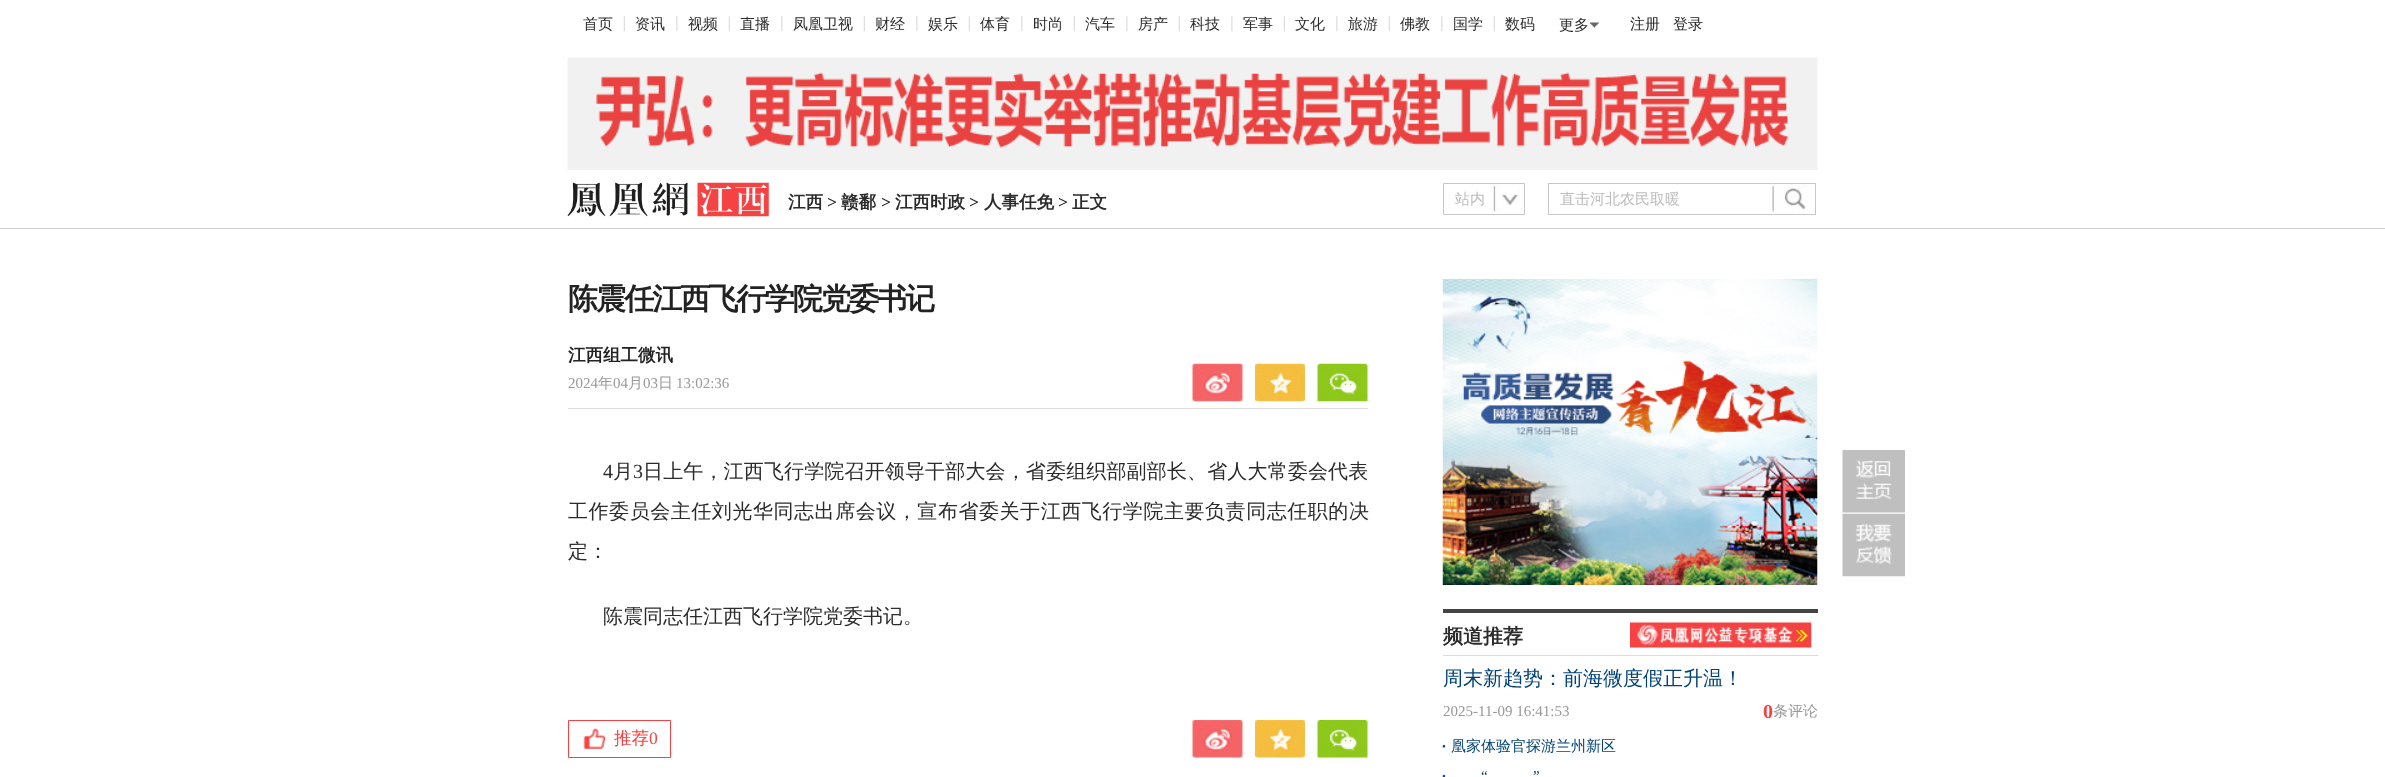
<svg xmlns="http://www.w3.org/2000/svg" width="2385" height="777">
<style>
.a{font:500 15px WenQuanYi Zen Hei;fill:#2b2b2b}
.b{font:500 15px WenQuanYi Zen Hei;fill:#222}
.c{font:bold 17.5px WenQuanYi Zen Hei;fill:#2b2b2b}
.d{font:bold 17.5px Liberation Serif;fill:#2b2b2b}
.e{font:500 15px WenQuanYi Zen Hei;fill:#bcbcbc}
.f{font:bold 30px WenQuanYi Zen Hei;letter-spacing:-1.9px;fill:#222}
.g{font:bold 17.5px WenQuanYi Zen Hei;fill:#222}
.h{font:15px Liberation Serif;fill:#999}
.i{font:500 15px WenQuanYi Zen Hei;fill:#999}
.j{font:20px Liberation Serif;letter-spacing:0.15px;fill:#2b2b2b}
.k{font:500 20px WenQuanYi Zen Hei;letter-spacing:0.15px;fill:#2b2b2b}
.l{font:500 20px WenQuanYi Zen Hei;letter-spacing:0.55px;fill:#2b2b2b}
.m{font:500 20px WenQuanYi Zen Hei;fill:#2b2b2b}
.n{font:500 17.5px WenQuanYi Zen Hei;fill:#f54343}
.o{font:17.5px Liberation Serif;fill:#f54343}
.p{font:bold 20px WenQuanYi Zen Hei;fill:#2b2b2b}
.q{font:500 20px WenQuanYi Zen Hei;fill:#004276}
.r{font:bold 20px Liberation Serif;fill:#f54343}
.s{font:500 15px WenQuanYi Zen Hei;fill:#004276}
.t{font:15px Liberation Serif;fill:#004276}
</style>
<rect width="100%" height="100%" fill="#fff"/>
<image href="1.png" x="623" y="16" width="2" height="16"/>
<image href="2.png" x="676" y="16" width="2" height="16"/>
<image href="1.png" x="728" y="16" width="2" height="16"/>
<image href="2.png" x="781" y="16" width="2" height="16"/>
<image href="1.png" x="863" y="16" width="2" height="16"/>
<image href="2.png" x="916" y="16" width="2" height="16"/>
<image href="1.png" x="968" y="16" width="2" height="16"/>
<image href="2.png" x="1021" y="16" width="2" height="16"/>
<image href="1.png" x="1073" y="16" width="2" height="16"/>
<image href="2.png" x="1126" y="16" width="2" height="16"/>
<image href="1.png" x="1178" y="16" width="2" height="16"/>
<image href="2.png" x="1231" y="16" width="2" height="16"/>
<image href="1.png" x="1283" y="16" width="2" height="16"/>
<image href="2.png" x="1336" y="16" width="2" height="16"/>
<image href="1.png" x="1388" y="16" width="2" height="16"/>
<image href="2.png" x="1441" y="16" width="2" height="16"/>
<image href="1.png" x="1493" y="16" width="2" height="16"/>
<image href="3.png" x="1590" y="22" width="9" height="6"/>
<image href="4.png" x="567" y="57" width="1251" height="113"/>
<image href="5.png" x="567" y="182" width="202" height="35"/>
<image href="6.png" x="1493" y="184" width="31" height="30"/>
<path fill="none" stroke="#c7c7c7" d="M1443.5 183.5h81v31H1443.5z"/>
<path fill="#c7c7c7" d="M1548 183h225v1H1548z"/>
<path fill="#c7c7c7" d="M1548 214h225v1H1548z"/>
<path fill="#c7c7c7" d="M1548 183h1v32H1548z"/>
<image href="7.png" x="1772" y="183" width="35" height="32"/>
<path fill="#c7c7c7" d="M1773 183h43v1H1773z"/>
<path fill="#c7c7c7" d="M1815 183h1v32H1815z"/>
<path fill="#c7c7c7" d="M1773 214h43v1H1773z"/>
<path fill="#cdcdcd" d="M0 228h2385v1H0z"/>
<image href="8.png" x="1192" y="363" width="51" height="39"/>
<image href="9.png" x="1255" y="363" width="50" height="39"/>
<image href="10.png" x="1317" y="363" width="51" height="39"/>
<path fill="#ddd" d="M568 408h800v1H568z"/>
<image href="11.png" x="583" y="728" width="22" height="21"/>
<path fill="none" stroke="#f54343" d="M568.5 720.5h102v37H568.5z"/>
<image href="12.png" x="1192" y="720" width="51" height="38"/>
<image href="13.png" x="1255" y="720" width="50" height="38"/>
<image href="14.png" x="1317" y="720" width="51" height="38"/>
<image href="15.png" x="1442" y="278" width="376" height="307"/>
<path fill="#444" d="M1443 609h375v4H1443z"/>
<path fill="#ddd" d="M1443 655h375v1H1443z"/>
<image href="16.png" x="1630" y="622" width="182" height="26"/>
<image href="17.png" x="1442" y="744" width="4" height="4"/>
<image href="18.png" x="1442" y="774" width="4" height="3"/>
<image href="19.png" x="1842" y="450" width="63" height="63"/>
<image href="20.png" x="1842" y="513" width="63" height="64"/>
<text class="a" x="583" y="29">首页</text>
<text class="a" x="635" y="29">资讯</text>
<text class="a" x="688" y="29">视频</text>
<text class="a" x="740" y="29">直播</text>
<text class="a" x="793" y="29">凤凰卫视</text>
<text class="a" x="875" y="29">财经</text>
<text class="a" x="928" y="29">娱乐</text>
<text class="a" x="980" y="29">体育</text>
<text class="a" x="1033" y="29">时尚</text>
<text class="a" x="1085" y="29">汽车</text>
<text class="a" x="1138" y="29">房产</text>
<text class="a" x="1190" y="29">科技</text>
<text class="a" x="1243" y="29">军事</text>
<text class="a" x="1295" y="29">文化</text>
<text class="a" x="1348" y="29">旅游</text>
<text class="a" x="1400" y="29">佛教</text>
<text class="a" x="1453" y="29">国学</text>
<text class="a" x="1505" y="29">数码</text>
<text class="a" x="1559" y="30">更多</text>
<text class="b" x="1630" y="29">注册</text>
<text class="b" x="1673" y="29">登录</text>
<text class="c" x="788" y="208">江西</text>
<text class="d" x="827" y="208">&gt;</text>
<text class="c" x="841" y="208">赣鄱</text>
<text class="d" x="881" y="208">&gt;</text>
<text class="c" x="895" y="208">江西时政</text>
<text class="d" x="969" y="208">&gt;</text>
<text class="c" x="984" y="208">人事任免</text>
<text class="d" x="1058" y="208">&gt;</text>
<text class="c" x="1072" y="208">正文</text>
<text class="e" x="1455" y="204">站内</text>
<text class="e" x="1560" y="204">直击河北农民取暖</text>
<text class="f" x="568" y="309">陈震任江西飞行学院党委书记</text>
<text class="g" x="568" y="361">江西组工微讯</text>
<text class="h" x="568" y="388">2024</text>
<text class="i" x="598" y="388">年</text>
<text class="h" x="613" y="388">04</text>
<text class="i" x="628" y="388">月</text>
<text class="h" x="643" y="388">03</text>
<text class="i" x="658" y="388">日</text>
<text class="h" x="676" y="388">13:02:36</text>
<text class="j" x="603" y="478">4</text>
<text class="k" x="613" y="478">月</text>
<text class="j" x="633" y="478">3</text>
<text class="k" x="643" y="478">日上午，江西飞行学院召开领导干部大会，省委组织部副部长、省人大常委会代表</text>
<text class="l" x="568" y="518">工作委员会主任刘光华同志出席会议，宣布省委关于江西飞行学院主要负责同志任职的决</text>
<text class="m" x="568" y="558">定：</text>
<text class="m" x="603" y="623">陈震同志任江西飞行学院党委书记。</text>
<text class="n" x="614" y="744">推荐</text>
<text class="o" x="649" y="744">0</text>
<text class="p" x="1443" y="643">频道推荐</text>
<text class="q" x="1443" y="685">周末新趋势：前海微度假正升温！</text>
<text class="h" x="1443" y="716">2025-11-09 16:41:53</text>
<text class="r" x="1763" y="718">0</text>
<text class="i" x="1773" y="716">条评论</text>
<text class="s" x="1451" y="751">凰家体验官探游兰州新区</text>
<text class="t" x="1481" y="781">“</text>
<text class="t" x="1533" y="781">”</text>
</svg>
